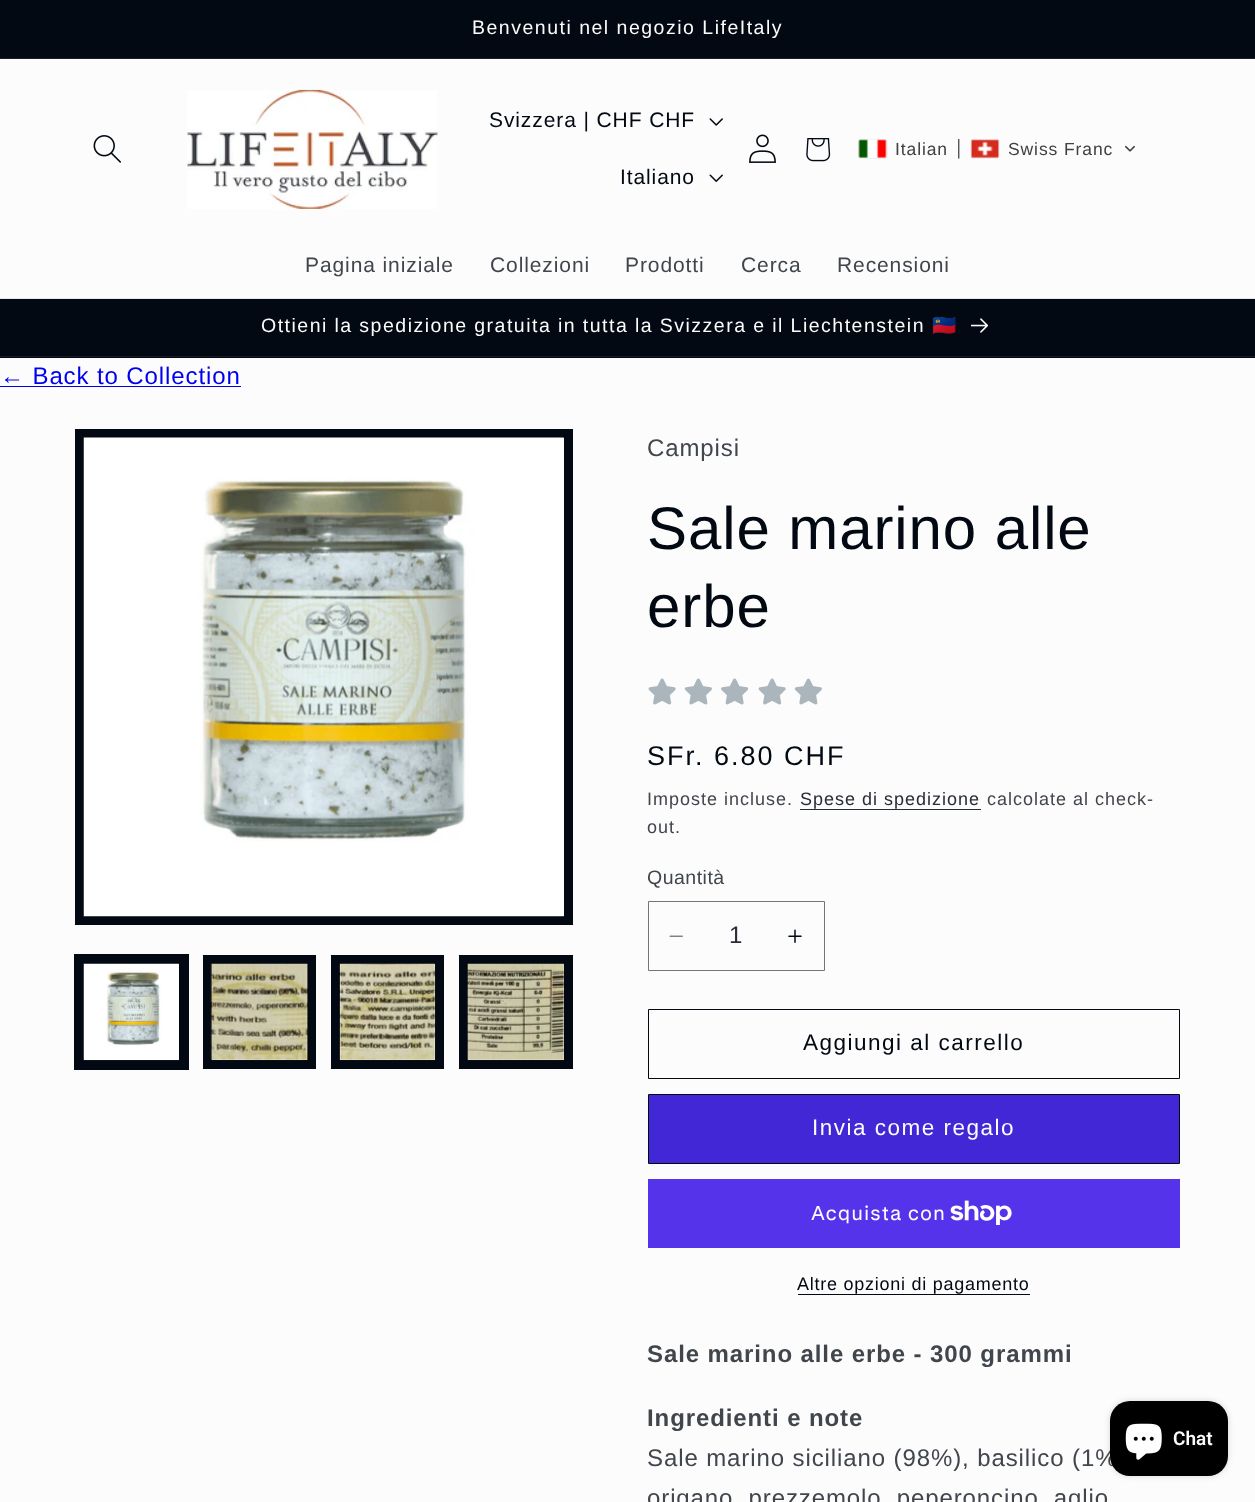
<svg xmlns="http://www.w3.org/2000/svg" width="1255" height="1502">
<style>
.a{font:19.5px Liberation Sans;letter-spacing:1.5px;fill:#fcfcfc}
.b{font:21px Liberation Sans;letter-spacing:0.9px;fill:#020912}
.c{font:17.5px Liberation Sans;letter-spacing:0.9px;fill:#404040}
.d{font:21px Liberation Sans;letter-spacing:0.9px;fill:#41464d}
.e{font:19.5px Noto Color Emoji;letter-spacing:1.5px;fill:#fcfcfc}
.f{font:24px Liberation Sans;letter-spacing:0.9px;fill:#00e}
.g{font:24px Liberation Sans;letter-spacing:0.9px;fill:#41464d}
.h{font:60px Liberation Sans;letter-spacing:0.9px;fill:#020912}
.i{font:27px Liberation Sans;letter-spacing:2px;fill:#020912}
.j{font:18px Liberation Sans;letter-spacing:1px;fill:#41464d}
.k{font:18px Liberation Sans;letter-spacing:1px;fill:#282d35}
.l{font:19.5px Liberation Sans;letter-spacing:0.5px;fill:#41464d}
.m{font:24px Liberation Sans;fill:#282d35}
.n{font:22.5px Liberation Sans;letter-spacing:1.5px;fill:#020912}
.o{font:22.5px Liberation Sans;letter-spacing:1.5px;fill:#fcfcfc}
.p{font:20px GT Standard;letter-spacing:0.9px;fill:#fcfcfc}
.q{font:18px Liberation Sans;letter-spacing:0.75px;fill:#020912}
.r{font:bold 24px Liberation Sans;letter-spacing:0.9px;fill:#41464d}
.s{font:600 19px Roboto;fill:#fcfcfc}
</style>
<rect width="100%" height="100%" fill="#fcfcfc"/>
<path fill="#020912" d="M0 0h1255v58H0z"/>
<path fill="#161c25" d="M0 58h1255v1H0z"/>
<path fill="#e8e9e9" d="M0 298h1255v1H0z"/>
<image href="1.png" x="93" y="135" width="28" height="28"/>
<image href="2.png" x="187" y="89" width="251" height="120"/>
<image href="3.png" x="709" y="118" width="14" height="8"/>
<image href="4.png" x="709" y="174" width="14" height="8"/>
<image href="5.png" x="749" y="134" width="27" height="29"/>
<image href="6.png" x="806" y="138" width="25" height="24"/>
<rect fill="none" stroke="#eff0f1" x="858.5" y="139.5" width="29" height="19" rx="2"/>
<image href="7.png" x="858" y="139" width="29" height="19"/>
<image href="8.png" x="958" y="139" width="2" height="20"/>
<rect fill="none" stroke="#eff0f1" x="970.5" y="139.5" width="29" height="19" rx="2"/>
<image href="9.png" x="971" y="139" width="28" height="19"/>
<image href="10.png" x="1125" y="145" width="10" height="7"/>
<path fill="#020912" d="M0 299h1255v59H0z"/>
<path fill="#161c25" d="M0 356h1255v1H0z"/>
<image href="11.png" x="971" y="318" width="18" height="15"/>
<path fill="#00e" d="M0 386h241v1H0z"/>
<path fill="none" stroke="#020912" stroke-width="9" d="M79.5 433.5h489v487H79.5z"/>
<image href="12.png" x="83" y="437" width="481" height="480"/>
<path fill="none" stroke="#020912" stroke-width="2" d="M75 955h113v114H75z"/>
<path fill="none" stroke="#020912" stroke-width="9" d="M79.5 959.5h104v105H79.5z"/>
<image href="13.png" x="83" y="963" width="96" height="98"/>
<path fill="none" stroke="#020912" stroke-width="9" d="M207.5 959.5h104v105H207.5z"/>
<image href="14.png" x="210" y="963" width="98" height="98"/>
<path fill="none" stroke="#020912" stroke-width="9" d="M335.5 959.5h104v105H335.5z"/>
<image href="15.png" x="339" y="963" width="97" height="98"/>
<path fill="none" stroke="#020912" stroke-width="9" d="M463.5 959.5h105v105H463.5z"/>
<image href="16.png" x="467" y="963" width="97" height="98"/>
<image href="17.png" x="648" y="678" width="28" height="27"/>
<image href="18.png" x="684" y="678" width="28" height="27"/>
<image href="19.png" x="721" y="678" width="28" height="27"/>
<image href="17.png" x="758" y="678" width="28" height="27"/>
<image href="18.png" x="794" y="678" width="28" height="27"/>
<path fill="#282d35" d="M800 809h181v1H800z"/>
<image href="20.png" x="669" y="935" width="14" height="2"/>
<image href="21.png" x="788" y="929" width="14" height="14"/>
<path fill="none" stroke="#72767b" d="M648.5 901.5h176v69H648.5z"/>
<path fill="none" stroke="#020912" d="M648.5 1009.5h531v69H648.5z"/>
<path fill="#4127d5" d="M649 1095h530v68H649z"/>
<path fill="none" stroke="#020912" d="M648.5 1094.5h531v69H648.5z"/>
<path fill="#5433eb" d="M648 1179h532v69H648z"/>
<image href="22.png" x="950" y="1200" width="62" height="25"/>
<path fill="#020912" d="M798 1294h232v1H798z"/>
<rect fill="#00000026" filter="blur(3px)" x="1110" y="1401" width="118" height="75" rx="20"/>
<text class="a" x="472" y="34">Benvenuti nel negozio LifeItaly</text>
<text class="b" x="489" y="127">Svizzera | CHF CHF</text>
<text class="b" x="620" y="184">Italiano</text>
<text class="c" x="895" y="155">Italian</text>
<text class="c" x="1008" y="155">Swiss Franc</text>
<text class="d" x="305" y="272">Pagina iniziale</text>
<text class="d" x="490" y="272">Collezioni</text>
<text class="d" x="625" y="272">Prodotti</text>
<text class="d" x="741" y="272">Cerca</text>
<text class="d" x="837" y="272">Recensioni</text>
<text class="a" x="261" y="332" word-spacing="-0.25">Ottieni la spedizione gratuita in tutta la Svizzera e il Liechtenstein</text>
<text class="e" x="932" y="332">🇱🇮</text>
<text class="f" x="0" y="384">← Back to Collection</text>
<text class="g" x="647" y="456">Campisi</text>
<text class="h" x="647" y="549">Sale marino alle</text>
<text class="h" x="647" y="627">erbe</text>
<text class="i" x="647" y="765">SFr. 6.80 CHF</text>
<text class="j" x="647" y="805">Imposte incluse.</text>
<text class="k" x="800" y="805">Spese di spedizione</text>
<text class="j" x="987" y="805">calcolate al check-</text>
<text class="j" x="647" y="833">out.</text>
<text class="l" x="647" y="884">Quantità</text>
<text class="m" x="729" y="943">1</text>
<text class="n" x="803" y="1050">Aggiungi al carrello</text>
<text class="o" x="812" y="1135">Invia come regalo</text>
<text class="p" x="811" y="1220">Acquista con</text>
<text class="q" x="797" y="1290">Altre opzioni di pagamento</text>
<text class="r" x="647" y="1362">Sale marino alle erbe - 300 grammi</text>
<text class="r" x="647" y="1426">Ingredienti e note</text>
<text class="g" x="647" y="1466">Sale marino siciliano (98%), basilico (1%</text>
<text class="g" x="647" y="1506">origano, prezzemolo, peperoncino, aglio</text>
<rect fill="#000" x="1110" y="1401" width="118" height="75" rx="20"/>
<image href="23.png" x="1125" y="1423" width="37" height="37"/>
<text class="s" x="1173" y="1445">Chat</text>
</svg>
